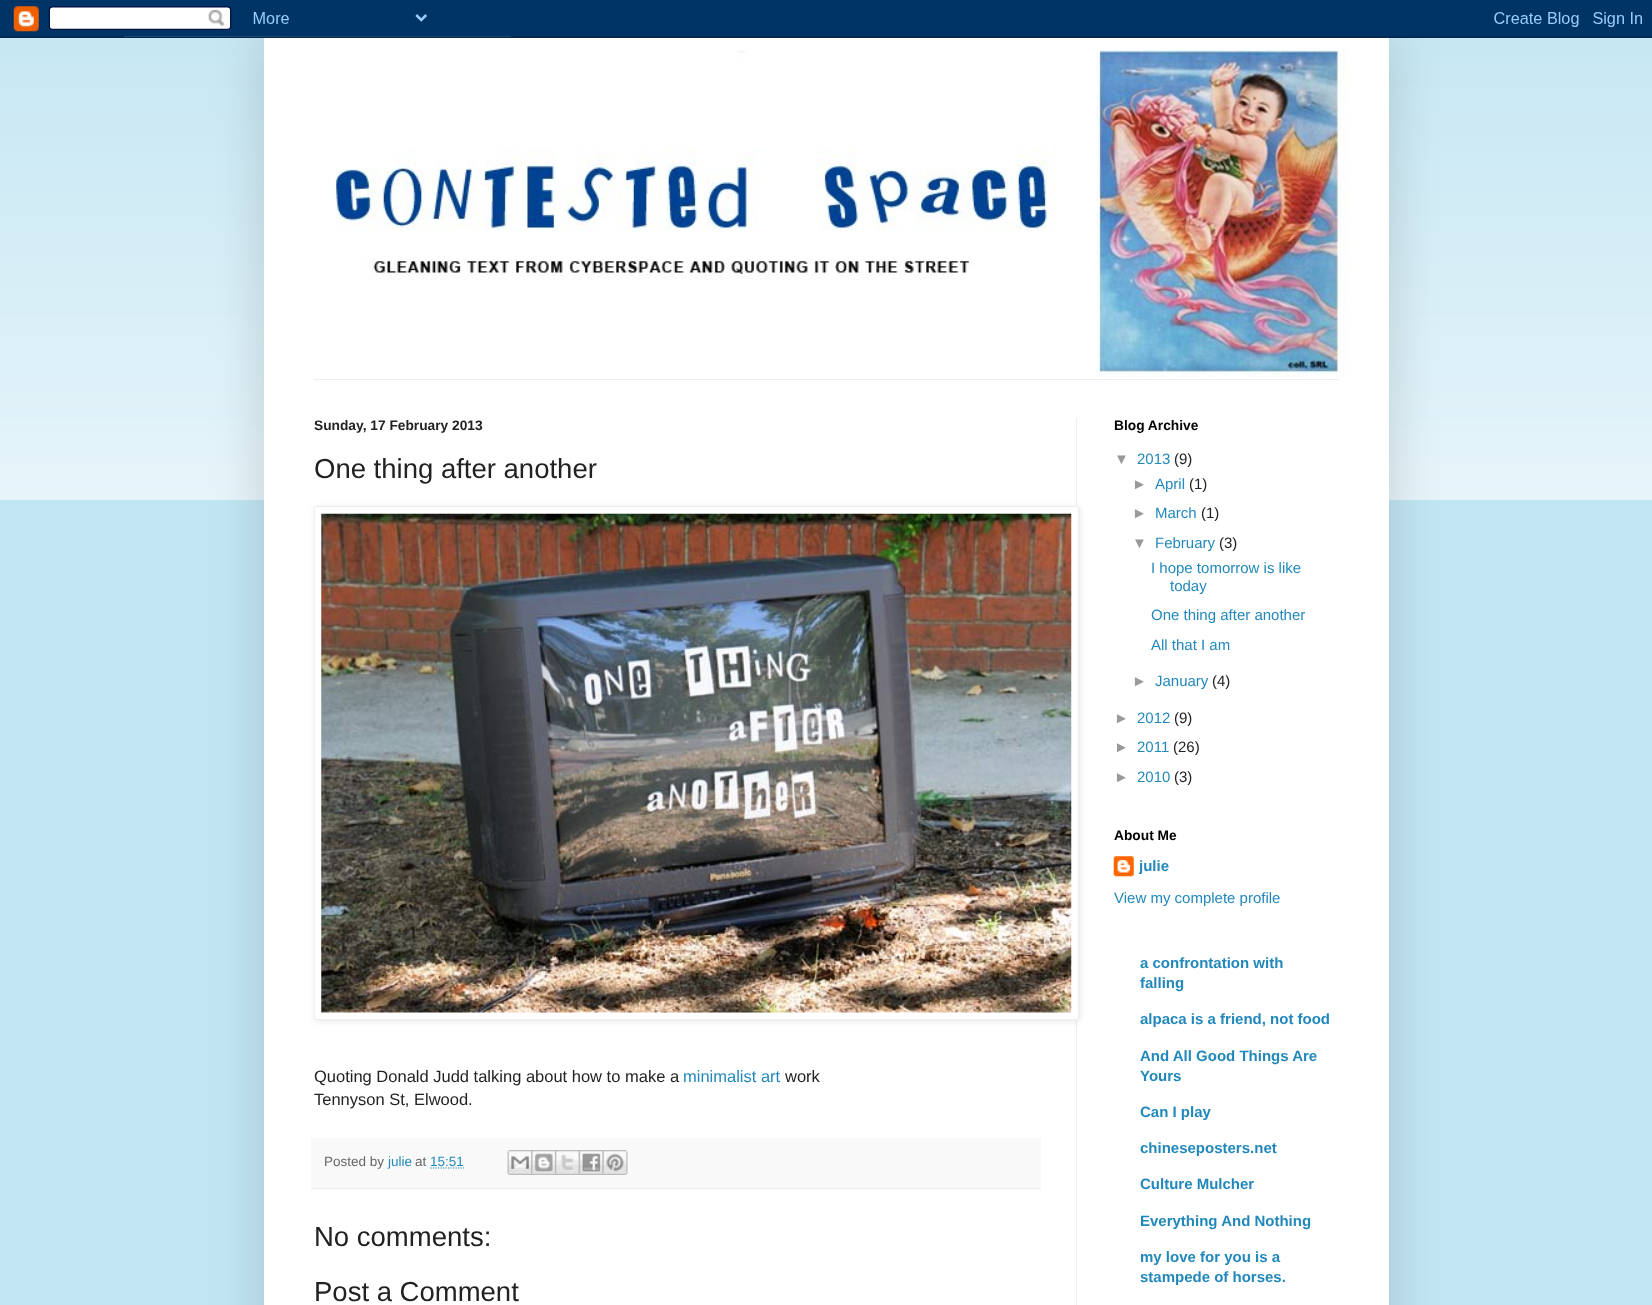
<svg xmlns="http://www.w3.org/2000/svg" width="1652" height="1305">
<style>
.a{font:bold 13.75px Liberation Sans;fill:#222}
.b{font:27.5px Liberation Sans;fill:#222}
.c{font:16.5px Liberation Sans;fill:#222}
.d{font:16.5px Liberation Sans;fill:#28b}
.e{font:13.5px Liberation Sans;fill:#666}
.f{font:13.5px Liberation Sans;fill:#28b}
.g{font:bold 13.75px Liberation Sans;fill:#000}
.h{font:15px Liberation Sans;fill:#999}
.i{font:15px Liberation Sans;fill:#28b}
.j{font:15px Liberation Sans;fill:#222}
.k{font:bold 15px Liberation Sans;fill:#28b}
</style>
<rect width="100%" height="100%" fill="#c1e5f2"/>
<image href="2.png" x="0" y="36" width="1652" height="464"/>
<path fill="#00000026" filter="blur(25px)" d="M264 38h1125v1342H264z"/>
<image href="1.png" x="0" y="0" width="1652" height="38"/>
<path fill="#fff" d="M264 38h1125v1267H264z"/>
<image href="3.png" x="335" y="50" width="1014" height="328"/>
<path fill="#eee" d="M314 379h1025v1H314z"/>
<path fill="#eee" d="M1076 418h1v887H1076z"/>
<path fill="#0000001a" filter="blur(3px)" d="M315 508h765v513H315z"/>
<path fill="#fff" stroke="#eee" d="M314.5 506.5h764v513H314.5z"/>
<image href="4.png" x="321" y="513" width="751" height="500"/>
<path fill="#f9f9f9" d="M311 1138h730v50H311z"/>
<path fill="#eee" d="M311 1188h730v1H311z"/>
<path fill="none" stroke="#28b" stroke-width="1.2" stroke-dasharray="1.25 1.25" d="M430.5 1168h33.5"/>
<image href="5.png" x="507" y="1150" width="25" height="25"/>
<image href="6.png" x="531" y="1150" width="24" height="25"/>
<image href="7.png" x="555" y="1150" width="24" height="25"/>
<image href="8.png" x="578" y="1150" width="25" height="25"/>
<image href="9.png" x="602" y="1150" width="26" height="25"/>
<image href="10.png" x="1113" y="856" width="21" height="21"/>
<text class="a" x="314" y="430">Sunday, 17 February 2013</text>
<text class="b" x="314" y="478">One thing after another</text>
<text class="c" x="314" y="1082">Quoting Donald Judd talking about how to make a</text>
<text class="d" x="683" y="1082">minimalist art</text>
<text class="c" x="785" y="1082">work</text>
<text class="c" x="314" y="1105">Tennyson St, Elwood.</text>
<text class="e" x="324" y="1166">Posted by</text>
<text class="f" x="388" y="1166">julie</text>
<text class="e" x="415" y="1166">at</text>
<text class="f" x="430" y="1166">15:51</text>
<text class="b" x="314" y="1246">No comments:</text>
<text class="b" x="314" y="1301">Post a Comment</text>
<text class="g" x="1114" y="430">Blog Archive</text>
<text class="h" x="1114" y="464">▼</text>
<text class="i" x="1137" y="464">2013</text>
<text class="j" x="1174" y="464">(9)</text>
<text class="h" x="1132" y="489">►</text>
<text class="i" x="1155" y="489">April</text>
<text class="j" x="1189" y="489">(1)</text>
<text class="h" x="1132" y="518">►</text>
<text class="i" x="1155" y="518">March</text>
<text class="j" x="1201" y="518">(1)</text>
<text class="h" x="1132" y="548">▼</text>
<text class="i" x="1155" y="548">February</text>
<text class="j" x="1219" y="548">(3)</text>
<text class="i" x="1151" y="573">I hope tomorrow is like</text>
<text class="i" x="1170" y="591">today</text>
<text class="i" x="1151" y="620">One thing after another</text>
<text class="i" x="1151" y="650">All that I am</text>
<text class="h" x="1132" y="686">►</text>
<text class="i" x="1155" y="686">January</text>
<text class="j" x="1212" y="686">(4)</text>
<text class="h" x="1114" y="723">►</text>
<text class="i" x="1137" y="723">2012</text>
<text class="j" x="1174" y="723">(9)</text>
<text class="h" x="1114" y="752">►</text>
<text class="i" x="1137" y="752">2011</text>
<text class="j" x="1173" y="752">(26)</text>
<text class="h" x="1114" y="782">►</text>
<text class="i" x="1137" y="782">2010</text>
<text class="j" x="1174" y="782">(3)</text>
<text class="g" x="1114" y="840">About Me</text>
<text class="k" x="1139" y="871">julie</text>
<text class="i" x="1114" y="903">View my complete profile</text>
<text class="k" x="1140" y="968">a confrontation with</text>
<text class="k" x="1140" y="988">falling</text>
<text class="k" x="1140" y="1024">alpaca is a friend, not food</text>
<text class="k" x="1140" y="1061">And All Good Things Are</text>
<text class="k" x="1140" y="1081">Yours</text>
<text class="k" x="1140" y="1117">Can I play</text>
<text class="k" x="1140" y="1153">chineseposters.net</text>
<text class="k" x="1140" y="1189">Culture Mulcher</text>
<text class="k" x="1140" y="1226">Everything And Nothing</text>
<text class="k" x="1140" y="1262">my love for you is a</text>
<text class="k" x="1140" y="1282">stampede of horses.</text>
</svg>
